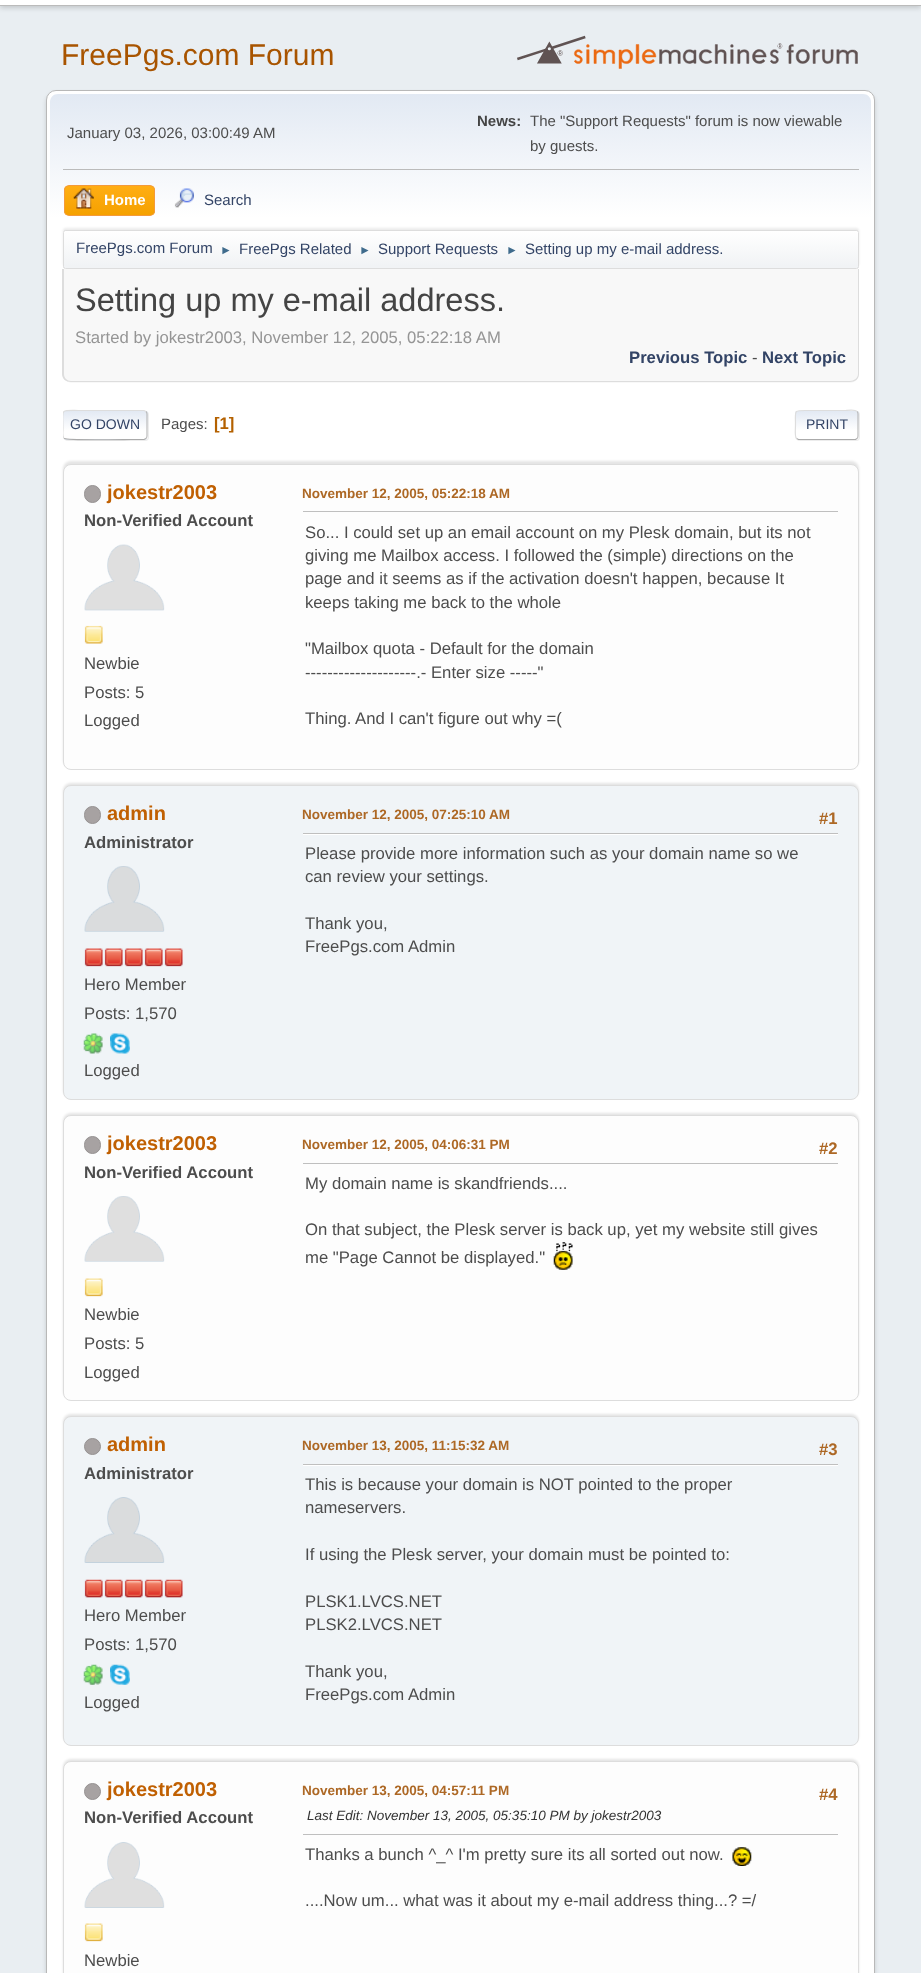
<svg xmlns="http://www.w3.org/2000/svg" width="921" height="1973">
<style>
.a{font:30px Liberation Sans;fill:#a85400}
.b{font:15px Liberation Sans;fill:#4d4d4d}
.c{font:bold 15px Liberation Sans;fill:#444}
.d{font:bold 15px Liberation Sans;fill:#fff}
.e{font:15px Liberation Sans;fill:#346}
.f{font:12px Liberation Sans;fill:#3f6b8c}
.g{font:32.5px Liberation Sans;fill:#444}
.h{font:16.7px Liberation Sans;fill:#959595}
.i{font:bold 16.7px Liberation Sans;fill:#346}
.j{font:16.7px Liberation Sans;fill:#4d4d4d}
.k{font:14px Liberation Sans;fill:#346}
.l{font:bold 16.7px Liberation Sans;fill:#b46100}
.m{font:bold 20px Liberation Sans;fill:#c06002}
.n{font:bold 16.7px Liberation Sans;fill:#4d4d4d}
.o{font:bold 13.5px Liberation Sans;fill:#ad6825}
.p{font:bold 16.7px Liberation Sans;fill:#ad6825}
.q{font:italic 13.5px Liberation Sans;fill:#333}
</style>
<defs>
<linearGradient id="g1" gradientUnits="userSpaceOnUse" x1="461" y1="94" x2="461" y2="271"><stop offset="0" stop-color="#e2e9f3"/><stop offset="0.7" stop-color="#fff"/></linearGradient>
<clipPath id="clip1"><rect x="64" y="185" width="91" height="31" rx="5"/></clipPath>
<linearGradient id="g2" gradientUnits="userSpaceOnUse" x1="109" y1="186" x2="109" y2="215"><stop offset="0" stop-color="#ffae14"/><stop offset="1" stop-color="#f5a100"/></linearGradient>
<clipPath id="clip2"><rect x="63" y="230" width="796" height="39" rx="2.5"/></clipPath>
<linearGradient id="g3" gradientUnits="userSpaceOnUse" x1="461" y1="231" x2="461" y2="268"><stop offset="0" stop-color="#fff"/><stop offset="0.95" stop-color="#f1f3f5"/></linearGradient>
<clipPath id="clip3"><rect x="63" y="410" width="85" height="30" rx="4"/></clipPath>
<linearGradient id="g4" gradientUnits="userSpaceOnUse" x1="105" y1="411" x2="105" y2="439"><stop offset="0" stop-color="#e2e9f3"/><stop offset="0.7" stop-color="#fff"/></linearGradient>
<linearGradient id="g5" gradientUnits="userSpaceOnUse" x1="105" y1="439" x2="105" y2="466"><stop offset="0" stop-color="#e2e9f3"/><stop offset="0.7" stop-color="#fff"/></linearGradient>
<clipPath id="clip4"><path d="M63 401h796v48H63z"/></clipPath>
<clipPath id="clip5"><path d="M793 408h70v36h-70zm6 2h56c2 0 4 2 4 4v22c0 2-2 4-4 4h-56c-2 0-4-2-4-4v-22c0-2 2-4 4-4z" clip-rule="evenodd"/></clipPath>
<clipPath id="clip6"><rect x="795" y="410" width="64" height="30" rx="4"/></clipPath>
<linearGradient id="g6" gradientUnits="userSpaceOnUse" x1="827" y1="411" x2="827" y2="439"><stop offset="0" stop-color="#e2e9f3"/><stop offset="0.7" stop-color="#fff"/></linearGradient>
</defs>
<rect width="100%" height="100%" fill="#e9eef2"/>
<path fill="#00000029" filter="blur(2.5px)" d="M0 -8h921v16H0z"/>
<path fill="#fff" d="M0 0h921v5H0z"/>
<path fill="#bbb" d="M0 5h921v1H0z"/>
<image href="1.png" x="517" y="35" width="341" height="34"/>
<rect fill="#00000024" filter="blur(2px)" x="46" y="93" width="829" height="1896" rx="10"/>
<rect fill="#fff" stroke="#b8b8b8" x="46.5" y="90.5" width="828" height="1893" rx="9.5"/>
<path fill="url(#g1)" d="M58 94h805c4.5 0 8 3.5 8 8v169h-821v-169c0-4.5 3.5-8 8-8z"/>
<path fill="#bbb" d="M63 169h796v1H63z"/>
<g clip-path="url(#clip1)">
<path fill="url(#g2)" d="M64 186h91v29H64z"/>
</g>
<rect fill="none" stroke="#f49a3a" x="64.5" y="185.5" width="90" height="30" rx="4.5"/>
<image href="2.png" x="73" y="188" width="21" height="21"/>
<image href="3.png" x="174" y="188" width="20" height="20"/>
<rect fill="#00000014" filter="blur(1px)" x="63" y="228" width="796" height="38" rx="2.5"/>
<g clip-path="url(#clip2)">
<path fill="url(#g3)" d="M63 231h796v37H63z"/>
</g>
<rect fill="none" stroke="#ddd" x="63.5" y="230.5" width="795" height="38" rx="2"/>
<path fill="#f8f8f8" d="M63 269h796v105c0 5-4 9-9 9h-778c-5 0-9-4-9-9z"/>
<path fill="#ddd" fill-rule="evenodd" d="M62 269h797v105c0 5-4 8-9 8h-779c-5 0-9-3-9-8zm2 0h794v105c0 4-4 7-8 7h-779c-4 0-7-3-7-7z"/>
<rect fill="#dddddd91" filter="blur(0.5px)" x="64" y="411" width="85" height="30" rx="4"/>
<rect fill="#fff" x="63" y="410" width="85" height="30" rx="4"/>
<g clip-path="url(#clip3)">
<path fill="url(#g4)" d="M63 411h85v28H63z"/>
<path fill="url(#g5)" d="M63 439h85v1H63z"/>
</g>
<path fill="none" stroke="#bbb" stroke-width="1.2" d="M146 411.5c.5 .5 1 1.5 1 2.5v22c0 1-.5 2-1 2.5"/>
<path fill="none" stroke="#aaa" stroke-width="1.2" d="M146 438.5l-2 1h-13c-7.5 0-64.5 1-66.5-1h-.5"/>
<g clip-path="url(#clip4)">
<path fill="none" stroke="#ddd" stroke-width="1.2" d="M64 438.5c-2-2.5-1-7-1-9.5c0-20.5-4-18.5 16-18.5h65l2 1"/>
</g>
<g clip-path="url(#clip5)">
<rect fill="#dddddd91" filter="blur(0.5px)" x="796" y="411" width="64" height="30" rx="4"/>
</g>
<rect fill="#fff" x="795" y="410" width="64" height="30" rx="4"/>
<g clip-path="url(#clip6)">
<path fill="url(#g6)" d="M795 411h64v28H795z"/>
</g>
<path fill="none" stroke="#bbb" stroke-width="1.2" d="M857 411.5c1 .5 1 1.5 1 2.5v22c0 1 0 2-1 2.5"/>
<path fill="none" stroke="#aaa" stroke-width="1.2" d="M857 438.5l-1.5 1h-57l-2-1"/>
<path fill="none" stroke="#ddd" stroke-width="1.2" d="M796.5 438.5c-2-2-1-11-1-13.5c0-15.5-2.5-14.5 12.5-14.5h37.5c1 0 9.5-1.5 11.5 1"/>
<rect fill="#0000001a" filter="blur(1px)" x="63" y="461" width="796" height="307" rx="8"/>
<rect fill="#fdfdfd" stroke="#ddd" x="63.5" y="464.5" width="795" height="305" rx="7.5"/>
<rect fill="#a7a2a2" stroke="#969292" x="84.5" y="485.5" width="16" height="17" rx="8"/>
<image href="4.png" x="84" y="544" width="81" height="67"/>
<image href="5.png" x="84" y="625" width="19" height="19"/>
<path fill="#bfbfbf" d="M303 511h535v1H303z"/>
<rect fill="#0000001a" filter="blur(1px)" x="63" y="783" width="796" height="315" rx="8"/>
<rect fill="#f0f4f7" stroke="#ddd" x="63.5" y="785.5" width="795" height="314" rx="7.5"/>
<rect fill="#a7a2a2" stroke="#969292" x="84.5" y="806.5" width="16" height="17" rx="8"/>
<image href="6.png" x="84" y="866" width="81" height="66"/>
<image href="7.png" x="84" y="948" width="19" height="19"/>
<image href="7.png" x="104" y="948" width="19" height="19"/>
<image href="7.png" x="124" y="948" width="19" height="19"/>
<image href="7.png" x="144" y="948" width="19" height="19"/>
<image href="8.png" x="164" y="948" width="19" height="19"/>
<image href="9.png" x="83" y="1033" width="20" height="21"/>
<image href="10.png" x="110" y="1033" width="20" height="21"/>
<path fill="#fff" d="M303 834h535v1H303z"/>
<path fill="#bfbfbf" d="M303 833h535v1H303z"/>
<rect fill="#0000001a" filter="blur(1px)" x="63" y="1113" width="796" height="286" rx="8"/>
<rect fill="#fdfdfd" stroke="#ddd" x="63.5" y="1115.5" width="795" height="285" rx="7.5"/>
<rect fill="#a7a2a2" stroke="#969292" x="84.5" y="1136.5" width="16" height="17" rx="8"/>
<image href="11.png" x="84" y="1196" width="81" height="66"/>
<image href="12.png" x="84" y="1278" width="19" height="19"/>
<path fill="#bfbfbf" d="M303 1163h535v1H303z"/>
<image href="13.png" x="553" y="1242" width="20" height="28"/>
<rect fill="#0000001a" filter="blur(1px)" x="63" y="1414" width="796" height="330" rx="8"/>
<rect fill="#f0f4f7" stroke="#ddd" x="63.5" y="1416.5" width="795" height="329" rx="7.5"/>
<circle fill="#a7a2a2" stroke="#969292" cx="92.5" cy="1446.5" r="8"/>
<image href="14.png" x="84" y="1497" width="81" height="66"/>
<image href="15.png" x="84" y="1579" width="19" height="19"/>
<image href="15.png" x="104" y="1579" width="19" height="19"/>
<image href="15.png" x="124" y="1579" width="19" height="19"/>
<image href="15.png" x="144" y="1579" width="19" height="19"/>
<image href="16.png" x="164" y="1579" width="19" height="19"/>
<image href="17.png" x="83" y="1664" width="20" height="21"/>
<image href="18.png" x="110" y="1664" width="20" height="21"/>
<path fill="#fff" d="M303 1465h535v1H303z"/>
<path fill="#bfbfbf" d="M303 1464h535v1H303z"/>
<rect fill="#0000001a" filter="blur(1px)" x="63" y="1759" width="796" height="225" rx="8"/>
<rect fill="#fdfdfd" stroke="#ddd" x="63.5" y="1761.5" width="795" height="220" rx="7.5"/>
<circle fill="#a7a2a2" stroke="#969292" cx="92.5" cy="1791.5" r="8"/>
<image href="19.png" x="84" y="1842" width="81" height="66"/>
<image href="12.png" x="84" y="1923" width="19" height="19"/>
<path fill="#bfbfbf" d="M303 1834h535v1H303z"/>
<image href="20.png" x="732" y="1847" width="20" height="19"/>
<text class="a" x="61" y="65">FreePgs.com Forum</text>
<text class="b" x="67" y="138">January 03, 2026, 03:00:49 AM</text>
<text class="c" x="477" y="126">News:</text>
<text class="b" x="530" y="126">The "Support Requests" forum is now viewable</text>
<text class="b" x="530" y="151">by guests.</text>
<text class="d" x="104" y="205">Home</text>
<text class="e" x="204" y="205">Search</text>
<text class="e" x="76" y="253">FreePgs.com Forum</text>
<text class="f" x="220" y="254">►</text>
<text class="e" x="239" y="254">FreePgs Related</text>
<text class="f" x="359" y="254">►</text>
<text class="e" x="378" y="254">Support Requests</text>
<text class="f" x="506" y="254">►</text>
<text class="e" x="525" y="254">Setting up my e-mail address.</text>
<text class="g" x="75" y="311">Setting up my e-mail address.</text>
<text class="h" x="75" y="343">Started by jokestr2003, November 12, 2005, 05:22:18 AM</text>
<text class="i" x="629" y="363">Previous Topic</text>
<text class="j" x="752" y="363">-</text>
<text class="i" x="762" y="363">Next Topic</text>
<text class="k" x="70" y="429">GO DOWN</text>
<text class="b" x="161" y="429">Pages:</text>
<text class="l" x="214" y="429">[1]</text>
<text class="k" x="806" y="429">PRINT</text>
<text class="m" x="107" y="499">jokestr2003</text>
<text class="n" x="84" y="526">Non-Verified Account</text>
<text class="j" x="84" y="669">Newbie</text>
<text class="j" x="84" y="698">Posts: 5</text>
<text class="j" x="84" y="726">Logged</text>
<text class="o" x="302" y="498">November 12, 2005, 05:22:18 AM</text>
<text class="j" x="305" y="538">So... I could set up an email account on my Plesk domain, but its not</text>
<text class="j" x="305" y="561">giving me Mailbox access. I followed the (simple) directions on the</text>
<text class="j" x="305" y="584">page and it seems as if the activation doesn't happen, because It</text>
<text class="j" x="305" y="608">keeps taking me back to the whole</text>
<text class="j" x="305" y="654">"Mailbox quota - Default for the domain</text>
<text class="j" x="305" y="678">--------------------.- Enter size -----"</text>
<text class="j" x="305" y="724">Thing. And I can't figure out why =(</text>
<text class="m" x="107" y="820">admin</text>
<text class="n" x="84" y="848">Administrator</text>
<text class="j" x="84" y="990">Hero Member</text>
<text class="j" x="84" y="1019">Posts: 1,570</text>
<text class="j" x="84" y="1076">Logged</text>
<text class="o" x="302" y="819">November 12, 2005, 07:25:10 AM</text>
<text class="p" x="819" y="824">#1</text>
<text class="j" x="305" y="859">Please provide more information such as your domain name so we</text>
<text class="j" x="305" y="882">can review your settings.</text>
<text class="j" x="305" y="929">Thank you,</text>
<text class="j" x="305" y="952">FreePgs.com Admin</text>
<text class="m" x="107" y="1150">jokestr2003</text>
<text class="n" x="84" y="1178">Non-Verified Account</text>
<text class="j" x="84" y="1320">Newbie</text>
<text class="j" x="84" y="1349">Posts: 5</text>
<text class="j" x="84" y="1378">Logged</text>
<text class="o" x="302" y="1149">November 12, 2005, 04:06:31 PM</text>
<text class="p" x="819" y="1154">#2</text>
<text class="j" x="305" y="1189">My domain name is skandfriends....</text>
<text class="j" x="305" y="1235">On that subject, the Plesk server is back up, yet my website still gives</text>
<text class="j" x="305" y="1263">me "Page Cannot be displayed."</text>
<text class="m" x="107" y="1451">admin</text>
<text class="n" x="84" y="1479">Administrator</text>
<text class="j" x="84" y="1621">Hero Member</text>
<text class="j" x="84" y="1650">Posts: 1,570</text>
<text class="j" x="84" y="1708">Logged</text>
<text class="o" x="302" y="1450">November 13, 2005, 11:15:32 AM</text>
<text class="p" x="819" y="1455">#3</text>
<text class="j" x="305" y="1490">This is because your domain is NOT pointed to the proper</text>
<text class="j" x="305" y="1513">nameservers.</text>
<text class="j" x="305" y="1560">If using the Plesk server, your domain must be pointed to:</text>
<text class="j" x="305" y="1607">PLSK1.LVCS.NET</text>
<text class="j" x="305" y="1630">PLSK2.LVCS.NET</text>
<text class="j" x="305" y="1677">Thank you,</text>
<text class="j" x="305" y="1700">FreePgs.com Admin</text>
<text class="m" x="107" y="1796">jokestr2003</text>
<text class="n" x="84" y="1823">Non-Verified Account</text>
<text class="j" x="84" y="1966">Newbie</text>
<text class="o" x="302" y="1795">November 13, 2005, 04:57:11 PM</text>
<text class="q" x="307" y="1820">Last Edit: November 13, 2005, 05:35:10 PM by jokestr2003</text>
<text class="p" x="819" y="1800">#4</text>
<text class="j" x="305" y="1860">Thanks a bunch ^_^ I'm pretty sure its all sorted out now.</text>
<text class="j" x="305" y="1906">....Now um... what was it about my e-mail address thing...? =/</text>
</svg>
